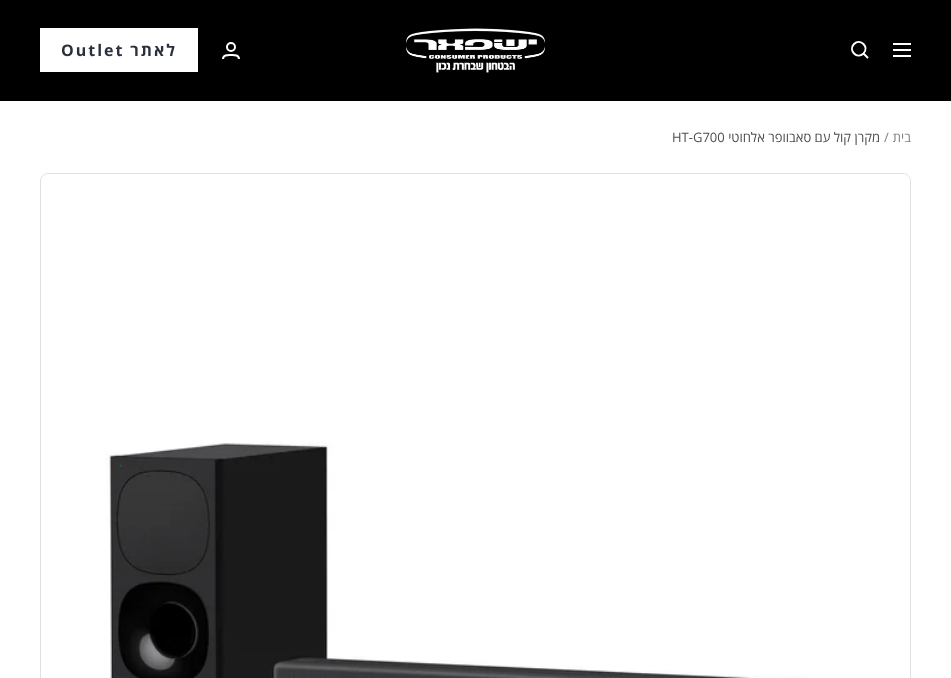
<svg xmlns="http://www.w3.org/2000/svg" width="951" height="678">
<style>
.a{font:bold 16px Open Sans;letter-spacing:2px;direction:rtl;fill:#2b303c}
.b{font:bold 16px Open Sans;letter-spacing:2px;fill:#2b303c}
.c{font:13px Open Sans;direction:rtl;fill:#828282}
.d{font:13px Open Sans;fill:#828282}
.e{font:13px Open Sans;direction:rtl;fill:#4d4d4d}
.f{font:13px Open Sans;fill:#4d4d4d}
</style>
<rect width="100%" height="100%" fill="#fff"/>
<path fill="#000" d="M0 0h951v101H0z"/>
<path fill="none" stroke="#fff" stroke-width="2" d="M893 44h18m-18 12h18zm0-6h18zm-29.5 3.5c6-6.5-3-15.5-9.5-9.5c-6 6.5 3 15.5 9.5 9.5zm0 0l4.5 4.5"/>
<image href="1.png" x="405" y="28" width="141" height="45"/>
<circle fill="none" stroke="#fff" stroke-width="2" cx="231" cy="47" r="4"/>
<path fill="none" stroke="#fff" stroke-width="2" d="M223 59c0-4.5 5-4 8-4c3 0 8-.5 8 4"/>
<path fill="#fff" d="M40 28h158v44H40z"/>
<rect fill="none" stroke="#e0e0e0" x="40.5" y="173.5" width="870" height="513" rx="7.5"/>
<image href="2.png" x="41" y="174" width="869" height="504"/>
<text class="a" x="177" y="56">לאתר</text>
<text class="b" x="61" y="56">Outlet</text>
<text class="c" x="911" y="142">בית</text>
<text class="d" x="884" y="142">/</text>
<text class="e" x="880" y="142">מקרן קול עם סאבוופר אלחוטי</text>
<text class="f" x="672" y="142">HT-G700</text>
</svg>
